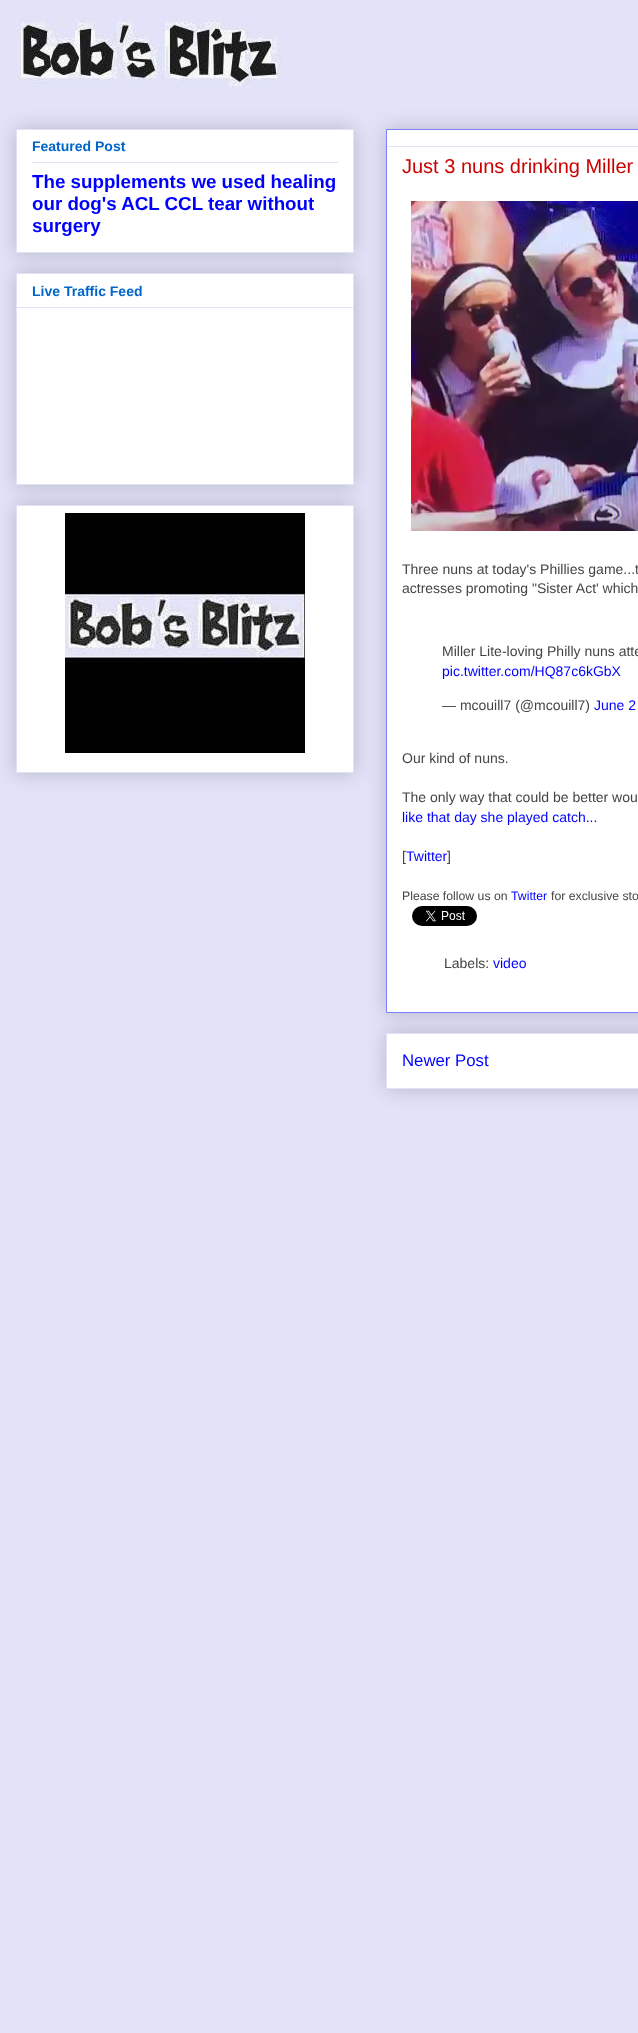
<svg xmlns="http://www.w3.org/2000/svg" width="638" height="2033">
<style>
.a{font:bold 14px Liberation Sans;fill:#06c}
.b{font:bold 18.75px Liberation Sans;fill:#00f}
.c{font:20px Liberation Sans;fill:#c00}
.d{font:14px Liberation Sans;fill:#444}
.e{font:14px Liberation Sans;fill:#00f}
.f{font:12.25px Liberation Sans;fill:#444}
.g{font:12.25px Liberation Sans;fill:#00f}
.h{font:16.75px Liberation Sans;fill:#00f}
</style>
<rect width="100%" height="100%" fill="#e2e3f8"/>
<image href="1.png" x="17" y="19" width="265" height="70"/>
<path fill="#00000033" filter="blur(10px)" d="M16 129h338v124H16z"/>
<path fill="#fff" stroke="#e2e3f8" d="M16.5 129.5h337v123H16.5z"/>
<path fill="#e2e3f8" d="M32 162h306v1H32z"/>
<path fill="#00000033" filter="blur(10px)" d="M16 273h338v212H16z"/>
<path fill="#fff" stroke="#e2e3f8" d="M16.5 273.5h337v211H16.5z"/>
<path fill="#e2e3f8" d="M17 307h336v1H17z"/>
<path fill="#00000033" filter="blur(10px)" d="M16 505h338v268H16z"/>
<path fill="#fff" stroke="#e2e3f8" d="M16.5 505.5h337v267H16.5z"/>
<image href="2.png" x="65" y="513" width="240" height="240"/>
<path fill="#00000033" filter="blur(10px)" d="M386 1033h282v56H386z"/>
<path fill="#fff" stroke="#e2e3f8" d="M386.5 1033.5h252v55H386.5z"/>
<path fill="#00000033" filter="blur(10px)" d="M386 129h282v884H386z"/>
<path fill="#fff" stroke="#7f7fff" d="M386.5 129.5h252v883H386.5z"/>
<path fill="#e2e3f8" d="M387 146h251v1H387z"/>
<image href="3.png" x="411" y="201" width="227" height="330"/>
<image href="4.png" x="412" y="906" width="65" height="20"/>
<text class="a" x="32" y="151">Featured Post</text>
<text class="b" x="32" y="188">The supplements we used healing</text>
<text class="b" x="32" y="210">our dog's ACL CCL tear without</text>
<text class="b" x="32" y="232">surgery</text>
<text class="a" x="32" y="296">Live Traffic Feed</text>
<text class="c" x="402" y="173">Just 3 nuns drinking Miller</text>
<text class="d" x="402" y="574">Three nuns at today's Phillies game...t</text>
<text class="d" x="402" y="593">actresses promoting "Sister Act' which</text>
<text class="d" x="442" y="656">Miller Lite-loving Philly nuns atte</text>
<text class="e" x="442" y="676">pic.twitter.com/HQ87c6kGbX</text>
<text class="d" x="442" y="710">— mcouill7 (@mcouill7)</text>
<text class="e" x="594" y="710">June 2</text>
<text class="d" x="402" y="763">Our kind of nuns.</text>
<text class="d" x="402" y="802">The only way that could be better wou</text>
<text class="e" x="402" y="822">like that day she played catch...</text>
<text class="d" x="402" y="861">[</text>
<text class="e" x="406" y="861">Twitter</text>
<text class="d" x="447" y="861">]</text>
<text class="f" x="402" y="900">Please follow us on</text>
<text class="g" x="511" y="900">Twitter</text>
<text class="f" x="551" y="900">for exclusive sto</text>
<text class="d" x="444" y="968">Labels:</text>
<text class="e" x="493" y="968">video</text>
<text class="h" x="402" y="1066">Newer Post</text>
</svg>
